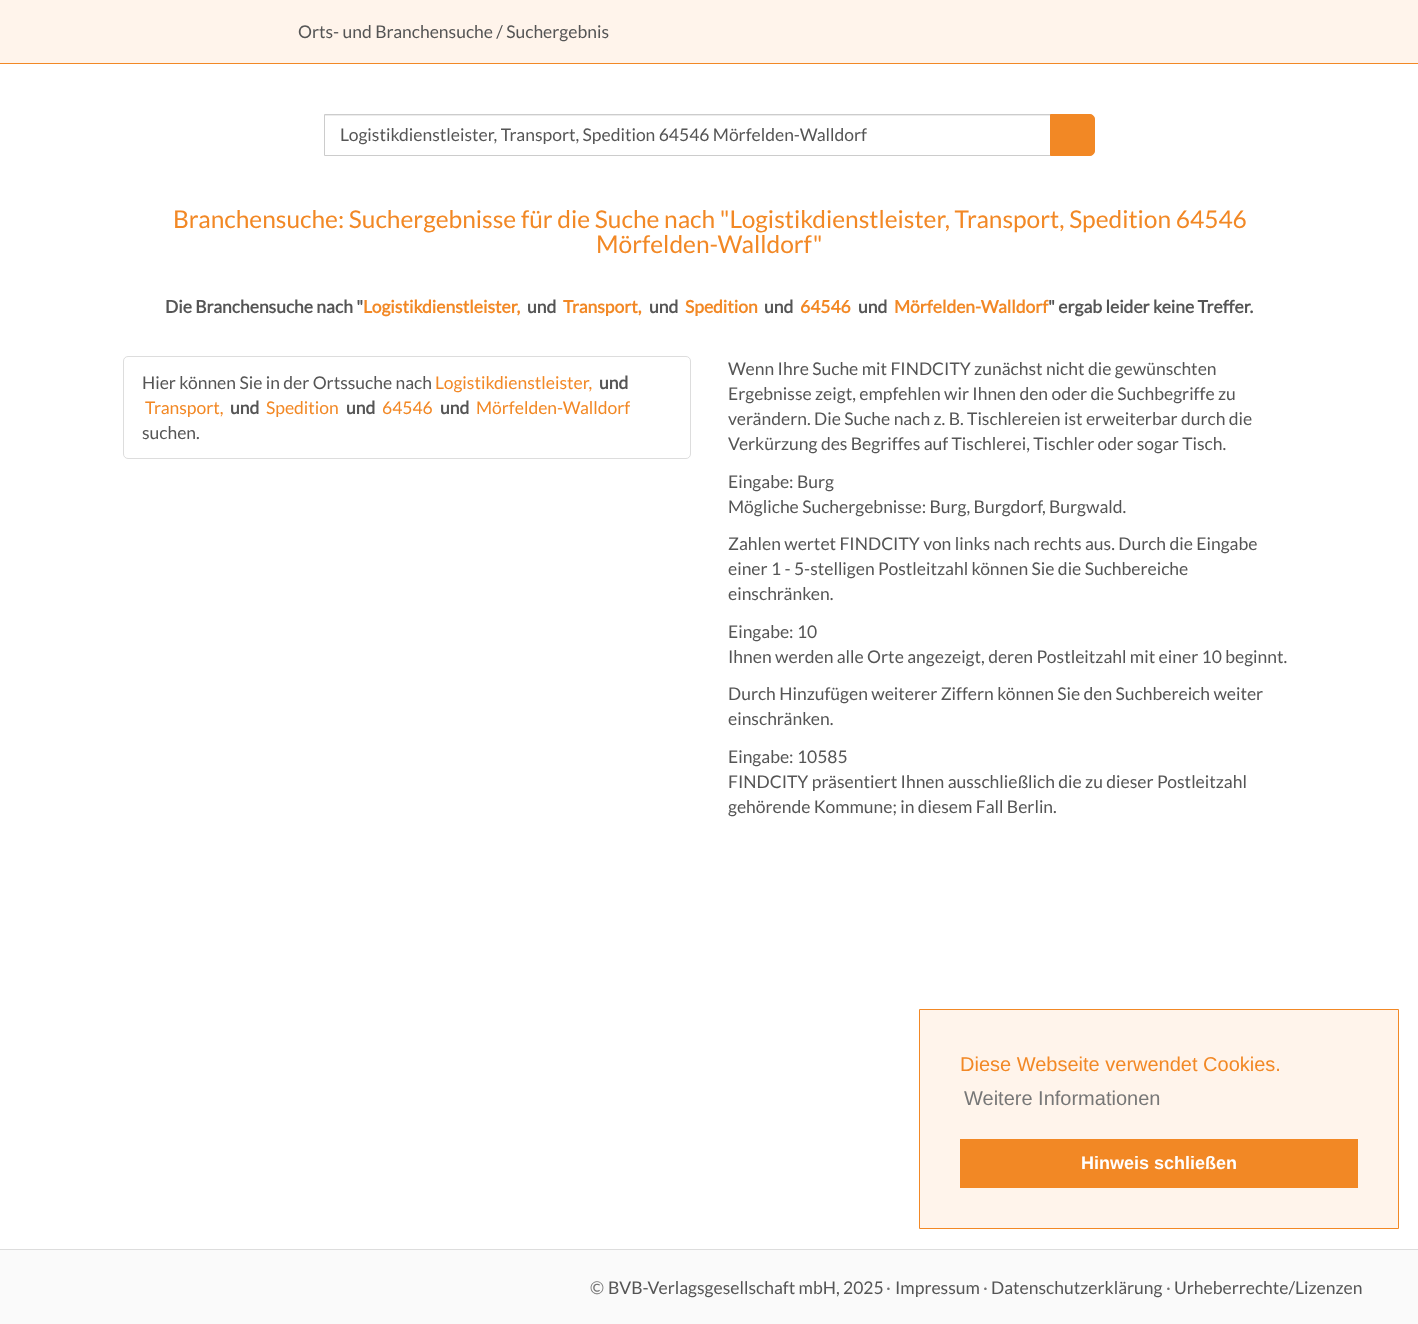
<svg xmlns="http://www.w3.org/2000/svg" width="1418" height="1324">
<style>
.a{font:17.5px Lato;fill:#555}
.b{font:24.5px Lato;fill:#f28825}
.c{font:bold 17.5px Lato;fill:#555}
.d{font:bold 17.5px Lato;fill:#f28825}
.e{font:17.5px Lato;fill:#f28825}
.f{font:20px Liberation Sans;fill:#f28825}
.g{font:20px Liberation Sans;fill:#777}
.h{font:bold 18px Liberation Sans;fill:#fff}
.i{font:17.5px Lato;fill:#777}
</style>
<rect width="100%" height="100%" fill="#fff"/>
<path fill="#fff4eb" d="M0 0h1418v63H0z"/>
<path fill="#f28825" d="M0 63h1418v1H0z"/>
<path fill="#ececec" d="M325 115h725v1H325z"/>
<path fill="none" stroke="#ccc" d="M324.5 114.5h726v41H324.5z"/>
<path fill="#f28825" stroke="#f28825" d="M1050.5 114.5h39.5c2.5 0 4.5 2 4.5 4.5v32c0 2.5-2 4.5-4.5 4.5h-39.5z"/>
<rect fill="none" stroke="#ddd" x="123.5" y="356.5" width="567" height="102" rx="4.5"/>
<path fill="#fff4eb" stroke="#f28825" d="M919.5 1009.5h479v219H919.5z"/>
<path fill="#f28825" d="M960 1139h398v49H960z"/>
<path fill="#fafafa" d="M0 1250h1418v74H0z"/>
<path fill="#ddd" d="M0 1249h1418v1H0z"/>
<text class="a" x="298" y="38">Orts- und Branchensuche / Suchergebnis</text>
<text class="a" x="340" y="141">Logistikdienstleister, Transport, Spedition 64546 Mörfelden-Walldorf</text>
<text class="b" x="173" y="228">Branchensuche: Suchergebnisse für die Suche nach "Logistikdienstleister, Transport, Spedition 64546</text>
<text class="b" x="596" y="253">Mörfelden-Walldorf"</text>
<text class="c" x="165" y="313">Die Branchensuche nach "</text>
<text class="d" x="363" y="313">Logistikdienstleister,</text>
<text class="c" x="527" y="313">und</text>
<text class="d" x="563" y="313">Transport,</text>
<text class="c" x="649" y="313">und</text>
<text class="d" x="685" y="313">Spedition</text>
<text class="c" x="764" y="313">und</text>
<text class="d" x="800" y="313">64546</text>
<text class="c" x="858" y="313">und</text>
<text class="d" x="894" y="313">Mörfelden-Walldorf</text>
<text class="c" x="1048" y="313">" ergab leider keine Treffer.</text>
<text class="a" x="142" y="389">Hier können Sie in der Ortssuche nach</text>
<text class="e" x="435" y="389">Logistikdienstleister,</text>
<text class="c" x="599" y="389">und</text>
<text class="e" x="145" y="414">Transport,</text>
<text class="c" x="230" y="414">und</text>
<text class="e" x="266" y="414">Spedition</text>
<text class="c" x="346" y="414">und</text>
<text class="e" x="382" y="414">64546</text>
<text class="c" x="440" y="414">und</text>
<text class="e" x="476" y="414">Mörfelden-Walldorf</text>
<text class="a" x="142" y="439">suchen.</text>
<text class="a" x="728" y="375">Wenn Ihre Suche mit FINDCITY zunächst nicht die gewünschten</text>
<text class="a" x="728" y="400">Ergebnisse zeigt, empfehlen wir Ihnen den oder die Suchbegriffe zu</text>
<text class="a" x="728" y="425">verändern. Die Suche nach z. B. Tischlereien ist erweiterbar durch die</text>
<text class="a" x="728" y="450">Verkürzung des Begriffes auf Tischlerei, Tischler oder sogar Tisch.</text>
<text class="a" x="728" y="488">Eingabe: Burg</text>
<text class="a" x="728" y="513">Mögliche Suchergebnisse: Burg, Burgdorf, Burgwald.</text>
<text class="a" x="728" y="550">Zahlen wertet FINDCITY von links nach rechts aus. Durch die Eingabe</text>
<text class="a" x="728" y="575">einer 1 - 5-stelligen Postleitzahl können Sie die Suchbereiche</text>
<text class="a" x="728" y="600">einschränken.</text>
<text class="a" x="728" y="638">Eingabe: 10</text>
<text class="a" x="728" y="663">Ihnen werden alle Orte angezeigt, deren Postleitzahl mit einer 10 beginnt.</text>
<text class="a" x="728" y="700">Durch Hinzufügen weiterer Ziffern können Sie den Suchbereich weiter</text>
<text class="a" x="728" y="725">einschränken.</text>
<text class="a" x="728" y="763">Eingabe: 10585</text>
<text class="a" x="728" y="788">FINDCITY präsentiert Ihnen ausschließlich die zu dieser Postleitzahl</text>
<text class="a" x="728" y="813">gehörende Kommune; in diesem Fall Berlin.</text>
<text class="f" x="960" y="1071">Diese Webseite verwendet Cookies.</text>
<text class="g" x="964" y="1105">Weitere Informationen</text>
<text class="h" x="1081" y="1169">Hinweis schließen</text>
<text class="i" x="590" y="1294">©</text>
<text class="a" x="608" y="1294">BVB-Verlagsgesellschaft mbH, 2025</text>
<text class="i" x="886" y="1294">·</text>
<text class="a" x="895" y="1294">Impressum</text>
<text class="i" x="983" y="1294">·</text>
<text class="a" x="991" y="1294">Datenschutzerklärung</text>
<text class="i" x="1166" y="1294">·</text>
<text class="a" x="1174" y="1294">Urheberrechte/Lizenzen</text>
</svg>
